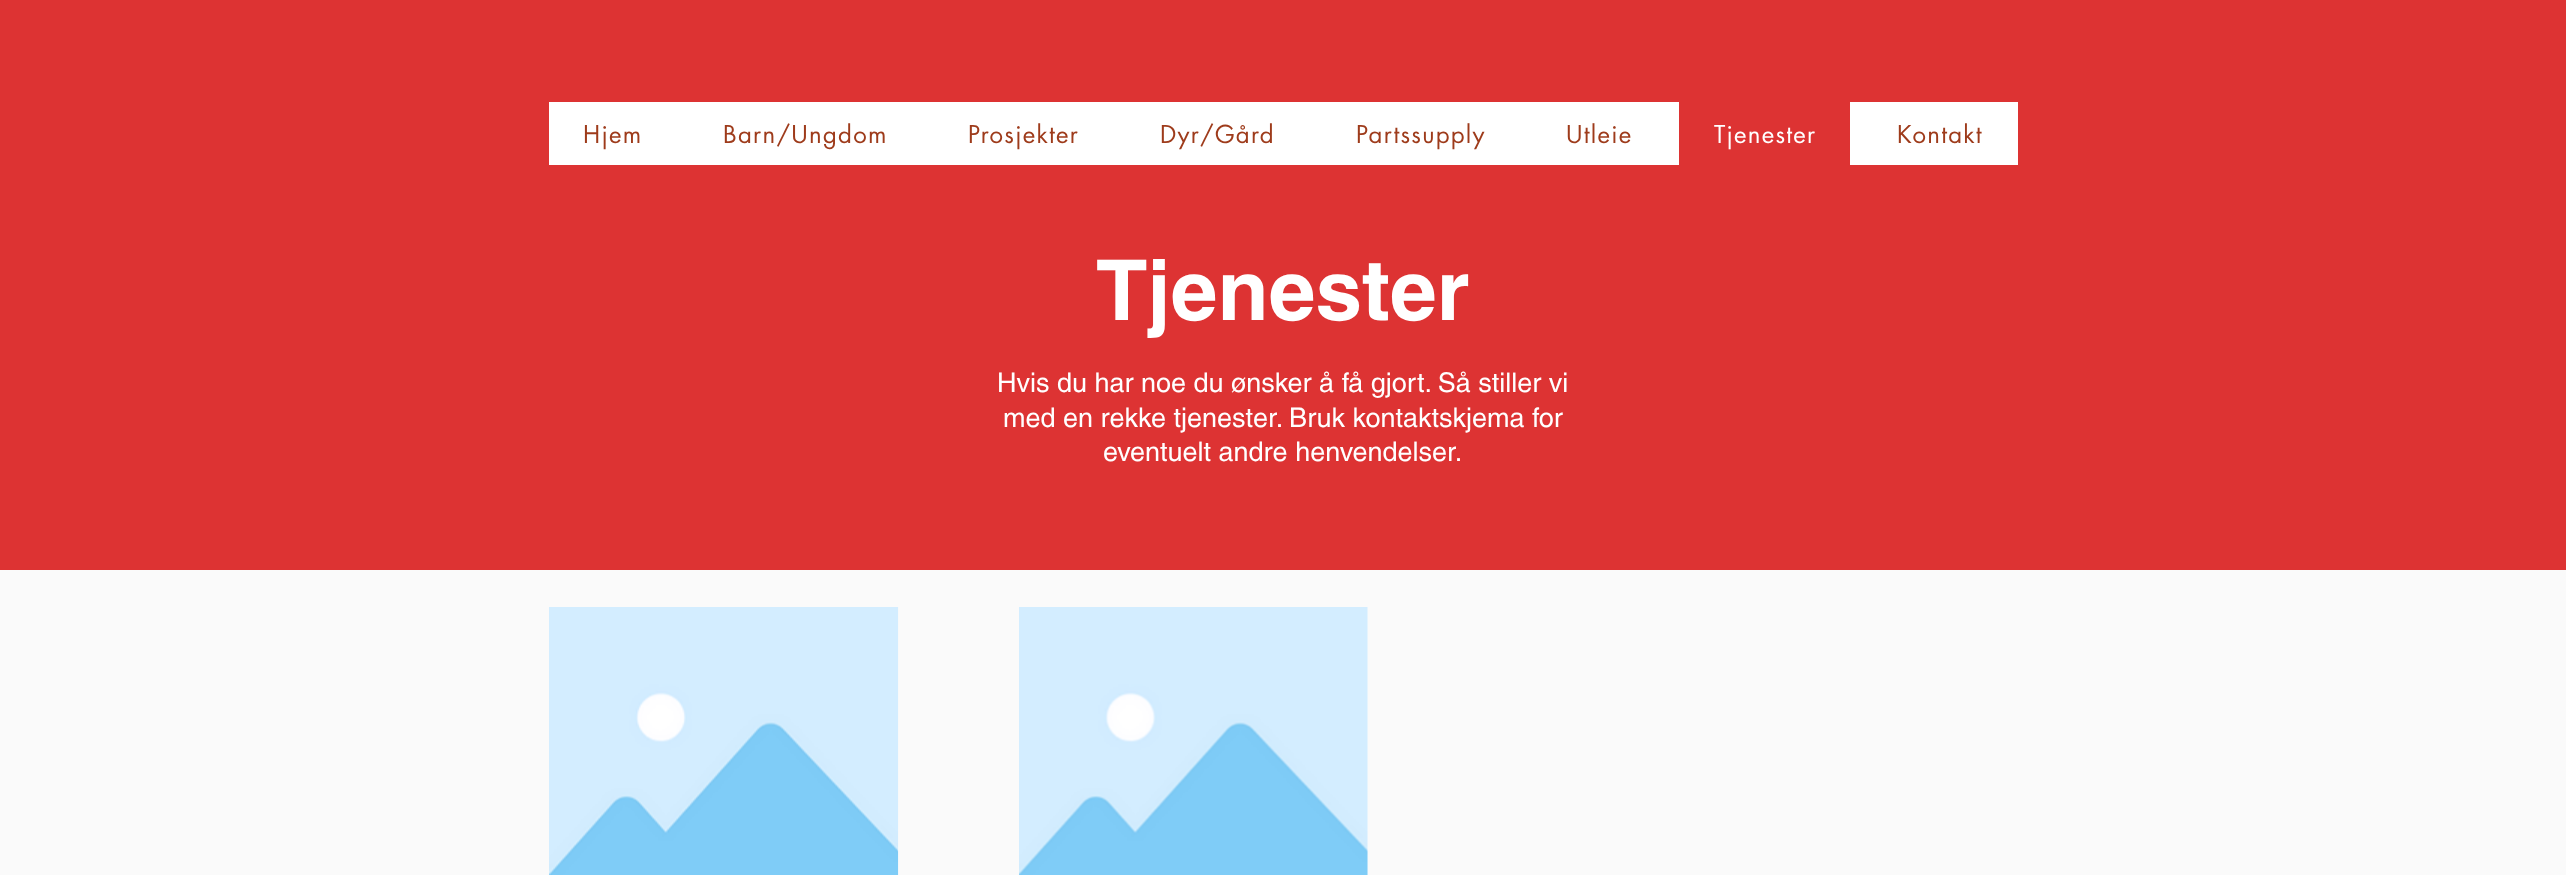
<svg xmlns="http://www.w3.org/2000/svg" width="2566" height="875">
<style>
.a{font:24px futura;letter-spacing:1.25px;fill:#9e3b1b}
.b{font:24px futura;letter-spacing:1.25px;fill:#fff}
.c{font:bold 84px helvetica;fill:#fff}
.d{font:27px helvetica;fill:#fff}
</style>
<rect width="100%" height="100%" fill="#d33"/>
<path fill="#fff" d="M549 102h1469v63H549z"/>
<path fill="#d33" d="M1679 102h171v63H1679z"/>
<path fill="#fafafa" d="M0 570h2566v305H0z"/>
<image href="1.png" x="549" y="607" width="350" height="268"/>
<image href="2.png" x="1019" y="607" width="349" height="268"/>
<text class="a" x="583" y="143">Hjem</text>
<text class="a" x="723" y="143">Barn/Ungdom</text>
<text class="a" x="968" y="143">Prosjekter</text>
<text class="a" x="1160" y="143">Dyr/Gård</text>
<text class="a" x="1356" y="143">Partssupply</text>
<text class="a" x="1566" y="143">Utleie</text>
<text class="b" x="1714" y="143">Tjenester</text>
<text class="a" x="1897" y="143">Kontakt</text>
<text class="c" x="1096" y="320">Tjenester</text>
<text class="d" x="997" y="392">Hvis du har noe du ønsker å få gjort. Så stiller vi</text>
<text class="d" x="1003" y="427">med en rekke tjenester. Bruk kontaktskjema for</text>
<text class="d" x="1103" y="461">eventuelt andre henvendelser.</text>
</svg>
